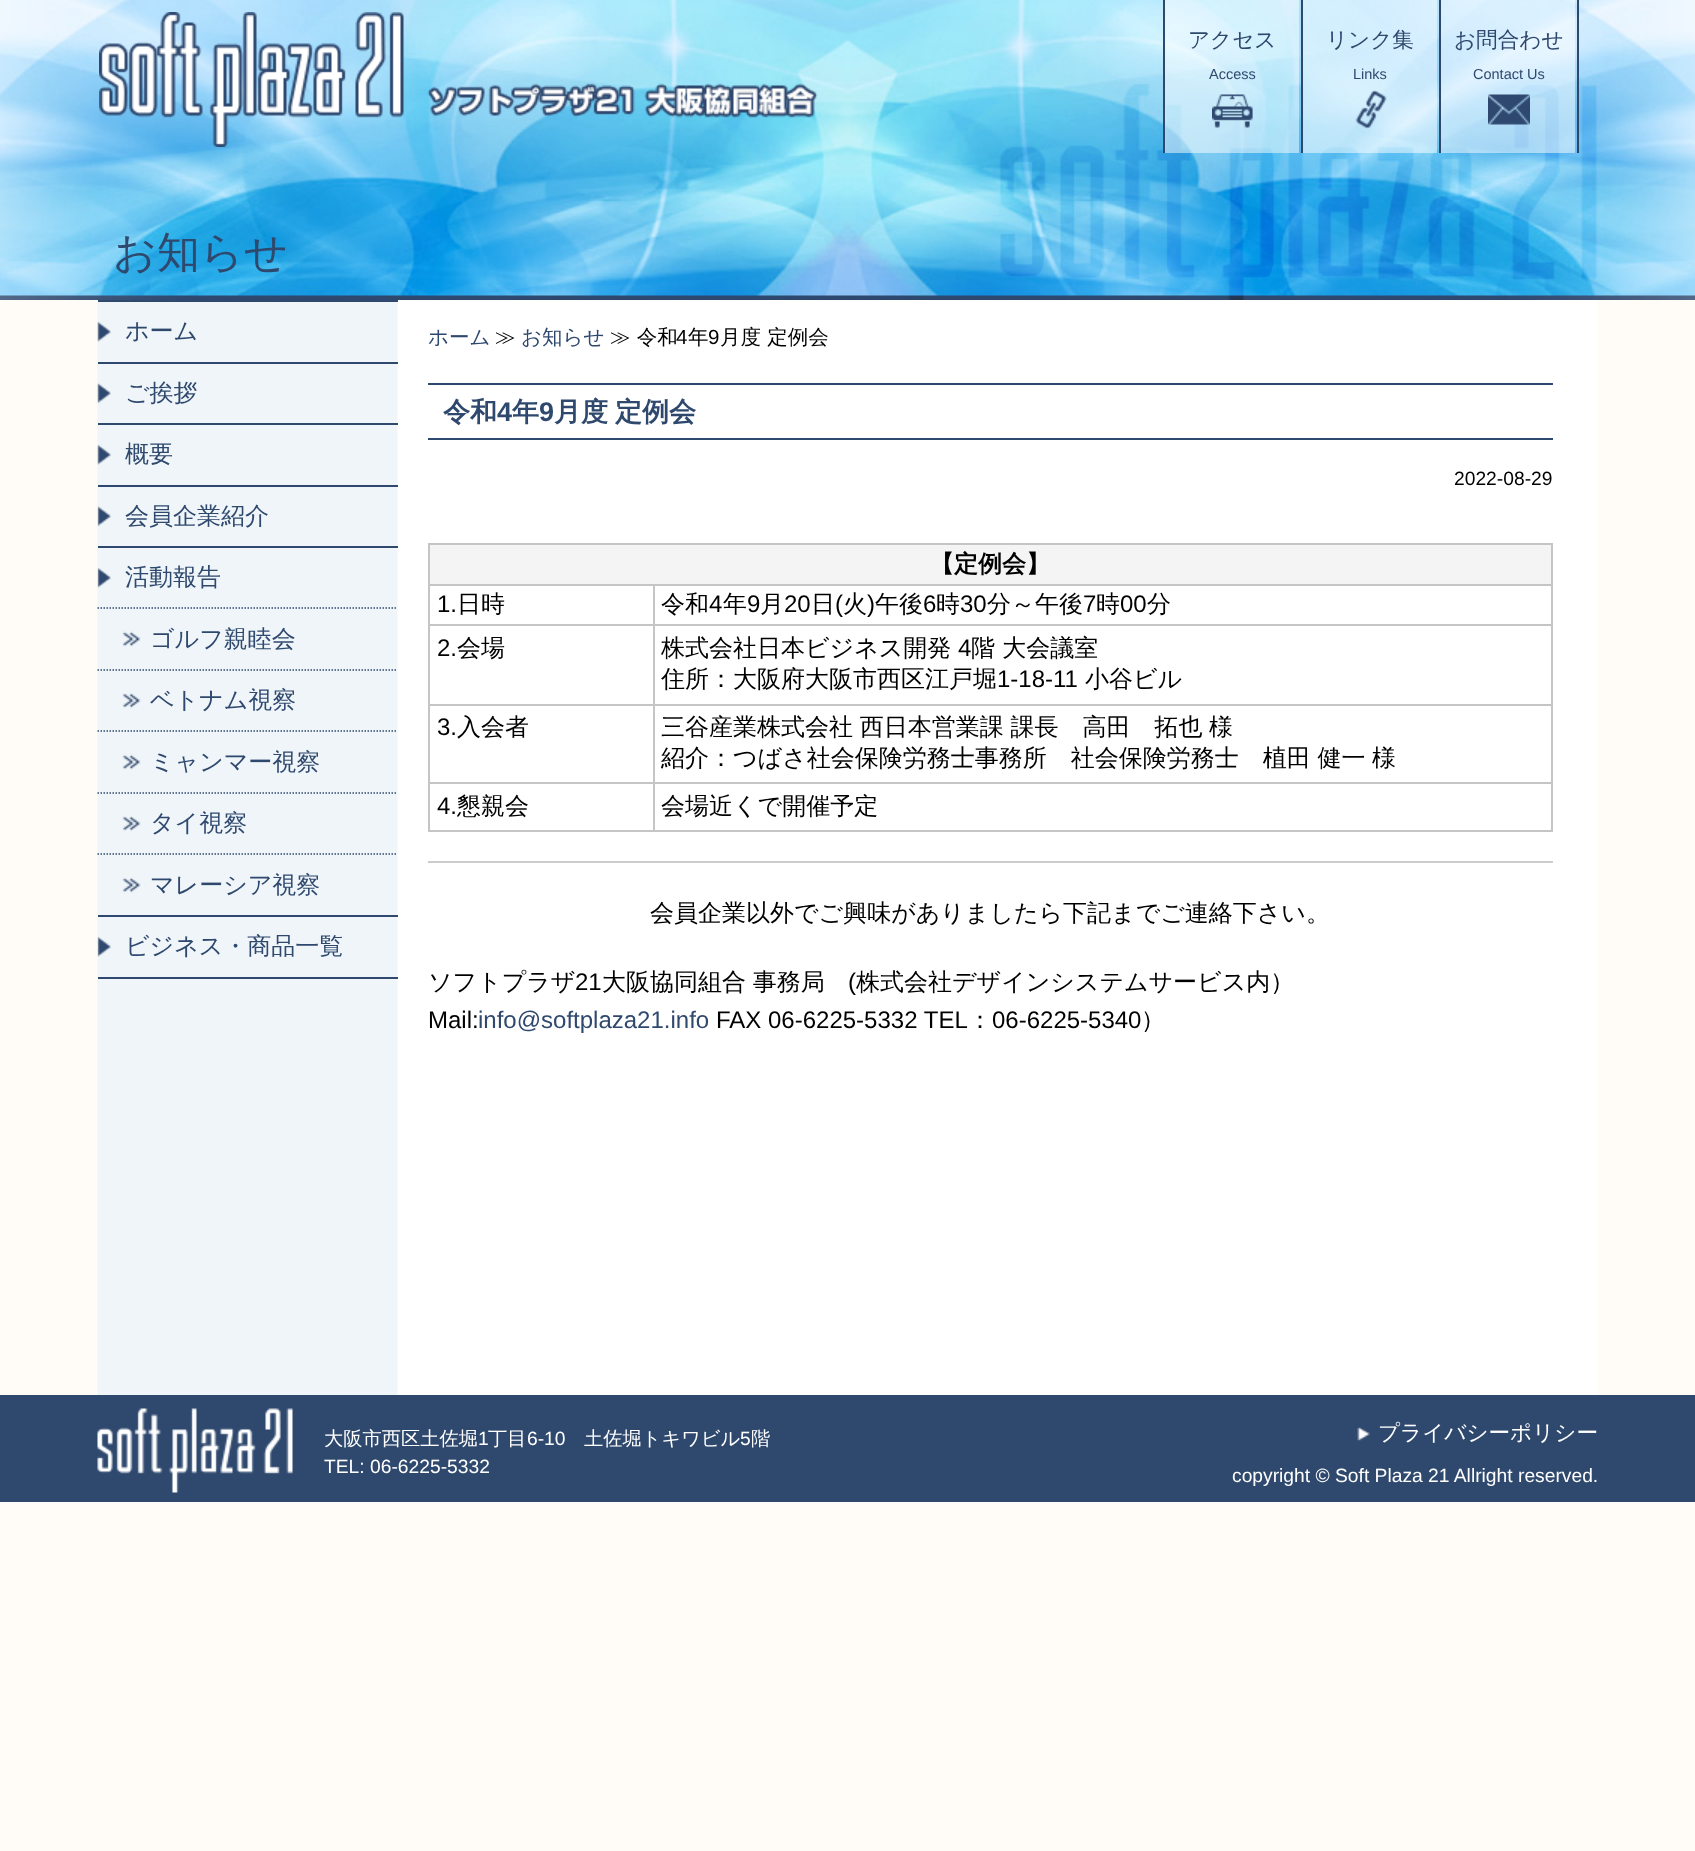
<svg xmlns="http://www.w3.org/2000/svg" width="1695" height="1851">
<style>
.a{font:500 21.6px WenQuanYi Zen Hei;fill:#2f496e}
.b{font:14.5px Liberation Sans;fill:#2f496e}
.c{font:500 43px WenQuanYi Zen Hei;fill:#2f496e}
.d{font:500 24px WenQuanYi Zen Hei;fill:#2f496e}
.e{font:500 20.5px WenQuanYi Zen Hei;fill:#2f496e}
.f{font:500 20.5px WenQuanYi Zen Hei;fill:#000}
.g{font:20.5px Liberation Sans;fill:#000}
.h{font:bold 27px WenQuanYi Zen Hei;fill:#2f496e}
.i{font:bold 27px Liberation Sans;fill:#2f496e}
.j{font:19.25px Liberation Sans;fill:#000}
.k{font:bold 24px WenQuanYi Zen Hei;fill:#000}
.l{font:24px Liberation Sans;fill:#000}
.m{font:500 24px WenQuanYi Zen Hei;fill:#000}
.n{font:24px Liberation Sans;fill:#2f496e}
.o{font:500 19.25px WenQuanYi Zen Hei;fill:#fff}
.p{font:19.25px Liberation Sans;fill:#fff}
.q{font:500 21.6px WenQuanYi Zen Hei;fill:#fff}
</style>
<rect width="100%" height="100%" fill="#fffbf6"/>
<image href="1.png" x="0" y="0" width="1695" height="300"/>
<image href="2.png" x="99" y="12" width="719" height="135"/>
<path fill="#2f496e" d="M1163 0h2v153H1163z"/>
<path fill="#ffffff80" d="M1165 0h134v153H1165z"/>
<image href="3.png" x="1212" y="94" width="41" height="34"/>
<path fill="#2f496e" d="M1301 0h2v153H1301z"/>
<path fill="#ffffff80" d="M1303 0h134v153H1303z"/>
<image href="4.png" x="1355" y="90" width="32" height="39"/>
<path fill="#2f496e" d="M1577 0h2v153H1577z"/>
<path fill="#2f496e" d="M1439 0h2v153H1439z"/>
<path fill="#ffffff80" d="M1441 0h134v153H1441z"/>
<image href="5.png" x="1488" y="94" width="42" height="31"/>
<image href="6.png" x="97" y="300" width="1501" height="1095"/>
<path fill="#2f496e" d="M98 300h300v2H98z"/>
<path fill="#2f496e" d="M98 362h300v2H98z"/>
<image href="7.png" x="97" y="321" width="14" height="21"/>
<path fill="#2f496e" d="M98 423h300v2H98z"/>
<image href="8.png" x="97" y="382" width="14" height="22"/>
<path fill="#2f496e" d="M98 485h300v2H98z"/>
<image href="7.png" x="97" y="444" width="14" height="21"/>
<path fill="#2f496e" d="M98 546h300v2H98z"/>
<image href="9.png" x="97" y="505" width="14" height="22"/>
<path fill="none" stroke="#2f496e" stroke-width="1.5" stroke-dasharray="1.5 1.5" d="M97.5 608h300"/>
<image href="10.png" x="97" y="567" width="14" height="21"/>
<path fill="none" stroke="#2f496e" stroke-width="1.5" stroke-dasharray="1.5 1.5" d="M97.5 670h300"/>
<image href="11.png" x="122" y="631" width="19" height="16"/>
<path fill="none" stroke="#2f496e" stroke-width="1.5" stroke-dasharray="1.5 1.5" d="M97.5 731h300"/>
<image href="12.png" x="122" y="693" width="19" height="16"/>
<path fill="none" stroke="#2f496e" stroke-width="1.5" stroke-dasharray="1.5 1.5" d="M97.5 793h300"/>
<image href="11.png" x="122" y="754" width="19" height="16"/>
<path fill="none" stroke="#2f496e" stroke-width="1.5" stroke-dasharray="1.5 1.5" d="M97.5 854h300"/>
<image href="12.png" x="122" y="816" width="19" height="16"/>
<path fill="#2f496e" d="M98 915h300v2H98z"/>
<image href="11.png" x="122" y="877" width="19" height="16"/>
<path fill="#2f496e" d="M98 977h300v2H98z"/>
<image href="10.png" x="97" y="936" width="14" height="21"/>
<path fill="#2f496e" d="M428 383h1125v2H428z"/>
<path fill="#2f496e" d="M428 438h1125v2H428z"/>
<path fill="#c5c5c5" d="M428 543h1125v2H428z"/>
<path fill="#c5c5c5" d="M428 543h2v288H428z"/>
<path fill="#c5c5c5" d="M1551 543h2v288H1551z"/>
<path fill="#c5c5c5" d="M428 584h1125v2H428z"/>
<path fill="#f4f4f4" d="M430 545h1121v39H430z"/>
<path fill="#c5c5c5" d="M428 624h1125v2H428z"/>
<path fill="#c5c5c5" d="M428 704h1125v2H428z"/>
<path fill="#c5c5c5" d="M428 782h1125v2H428z"/>
<path fill="#c5c5c5" d="M428 830h1125v2H428z"/>
<path fill="#c5c5c5" d="M653 584h2v247H653z"/>
<path fill="#ccc" d="M428 861h1125v2H428z"/>
<path fill="#2f496e" d="M0 1395h1695v107H0z"/>
<image href="13.png" x="97" y="1408" width="196" height="85"/>
<image href="14.png" x="1357" y="1427" width="13" height="14"/>
<text class="a" x="1188" y="47">アクセス</text>
<text class="b" x="1209" y="79">Access</text>
<text class="a" x="1326" y="47">リンク集</text>
<text class="b" x="1353" y="79">Links</text>
<text class="a" x="1454" y="47">お問合わせ</text>
<text class="b" x="1473" y="79">Contact Us</text>
<text class="c" x="113" y="267">お知らせ</text>
<text class="d" x="125" y="339">ホーム</text>
<text class="d" x="125" y="401">ご挨拶</text>
<text class="d" x="125" y="462">概要</text>
<text class="d" x="125" y="524">会員企業紹介</text>
<text class="d" x="125" y="585">活動報告</text>
<text class="d" x="150" y="647">ゴルフ親睦会</text>
<text class="d" x="150" y="708">ベトナム視察</text>
<text class="d" x="150" y="770">ミャンマー視察</text>
<text class="d" x="150" y="831">タイ視察</text>
<text class="d" x="150" y="893">マレーシア視察</text>
<text class="d" x="125" y="954">ビジネス・商品一覧</text>
<text class="e" x="428" y="344">ホーム</text>
<text class="f" x="495" y="344">≫</text>
<text class="e" x="521" y="344">お知らせ</text>
<text class="f" x="610" y="344">≫ 令和</text>
<text class="g" x="676" y="344">4</text>
<text class="f" x="688" y="344">年</text>
<text class="g" x="708" y="344">9</text>
<text class="f" x="720" y="344">月度 定例会</text>
<text class="h" x="443" y="421">令和</text>
<text class="i" x="497" y="421">4</text>
<text class="h" x="512" y="421">年</text>
<text class="i" x="539" y="421">9</text>
<text class="h" x="554" y="421" word-spacing="-1">月度 定例会</text>
<text class="j" x="1454" y="485">2022-08-29</text>
<text class="k" x="930" y="572">【定例会】</text>
<text class="l" x="437" y="612">1.</text>
<text class="m" x="457" y="612">日時</text>
<text class="m" x="661" y="612">令和</text>
<text class="l" x="709" y="612">4</text>
<text class="m" x="723" y="612">年</text>
<text class="l" x="747" y="612">9</text>
<text class="m" x="760" y="612">月</text>
<text class="l" x="784" y="612">20</text>
<text class="m" x="811" y="612">日</text>
<text class="l" x="835" y="612">(</text>
<text class="m" x="843" y="612">火</text>
<text class="l" x="867" y="612">)</text>
<text class="m" x="875" y="612">午後</text>
<text class="l" x="923" y="612">6</text>
<text class="m" x="936" y="612">時</text>
<text class="l" x="960" y="612">30</text>
<text class="m" x="987" y="612">分～午後</text>
<text class="l" x="1083" y="612">7</text>
<text class="m" x="1096" y="612">時</text>
<text class="l" x="1120" y="612">00</text>
<text class="m" x="1147" y="612">分</text>
<text class="l" x="437" y="656">2.</text>
<text class="m" x="457" y="656">会場</text>
<text class="m" x="661" y="656">株式会社日本ビジネス開発</text>
<text class="l" x="958" y="656">4</text>
<text class="m" x="971" y="656">階 大会議室</text>
<text class="m" x="661" y="687">住所：大阪府大阪市西区江戸堀</text>
<text class="l" x="997" y="687">1-18-11</text>
<text class="m" x="1085" y="687">小谷ビル</text>
<text class="l" x="437" y="735">3.</text>
<text class="m" x="457" y="735">入会者</text>
<text class="m" x="661" y="735" word-spacing="-0.5">三谷産業株式会社 西日本営業課 課長　高田　拓也 様</text>
<text class="m" x="661" y="766" word-spacing="-0.5">紹介：つばさ社会保険労務士事務所　社会保険労務士　植田 健一 様</text>
<text class="l" x="437" y="814">4.</text>
<text class="m" x="457" y="814">懇親会</text>
<text class="m" x="661" y="814">会場近くで開催予定</text>
<text class="m" x="650" y="921">会員企業以外でご興味がありましたら下記までご連絡下さい。</text>
<text class="m" x="428" y="990">ソフトプラザ</text>
<text class="l" x="575" y="990">21</text>
<text class="m" x="602" y="990" word-spacing="-0.5">大阪協同組合 事務局</text>
<text class="l" x="848" y="990">(</text>
<text class="m" x="856" y="990">株式会社デザインシステムサービス内）</text>
<text class="l" x="428" y="1028">Mail:</text>
<text class="n" x="478" y="1028">info@softplaza21.info</text>
<text class="l" x="716" y="1028">FAX 06-6225-5332 TEL</text>
<text class="m" x="968" y="1028">：</text>
<text class="l" x="992" y="1028">06-6225-5340</text>
<text class="m" x="1141" y="1028">）</text>
<text class="o" x="324" y="1445">大阪市西区土佐堀</text>
<text class="p" x="478" y="1445">1</text>
<text class="o" x="488" y="1445">丁目</text>
<text class="p" x="527" y="1445">6-10</text>
<text class="o" x="584" y="1445">土佐堀トキワビル</text>
<text class="p" x="740" y="1445">5</text>
<text class="o" x="751" y="1445">階</text>
<text class="p" x="324" y="1473">TEL: 06-6225-5332</text>
<text class="q" x="1378" y="1440">プライバシーポリシー</text>
<text class="p" x="1232" y="1482">copyright © Soft Plaza 21 Allright reserved.</text>
</svg>
